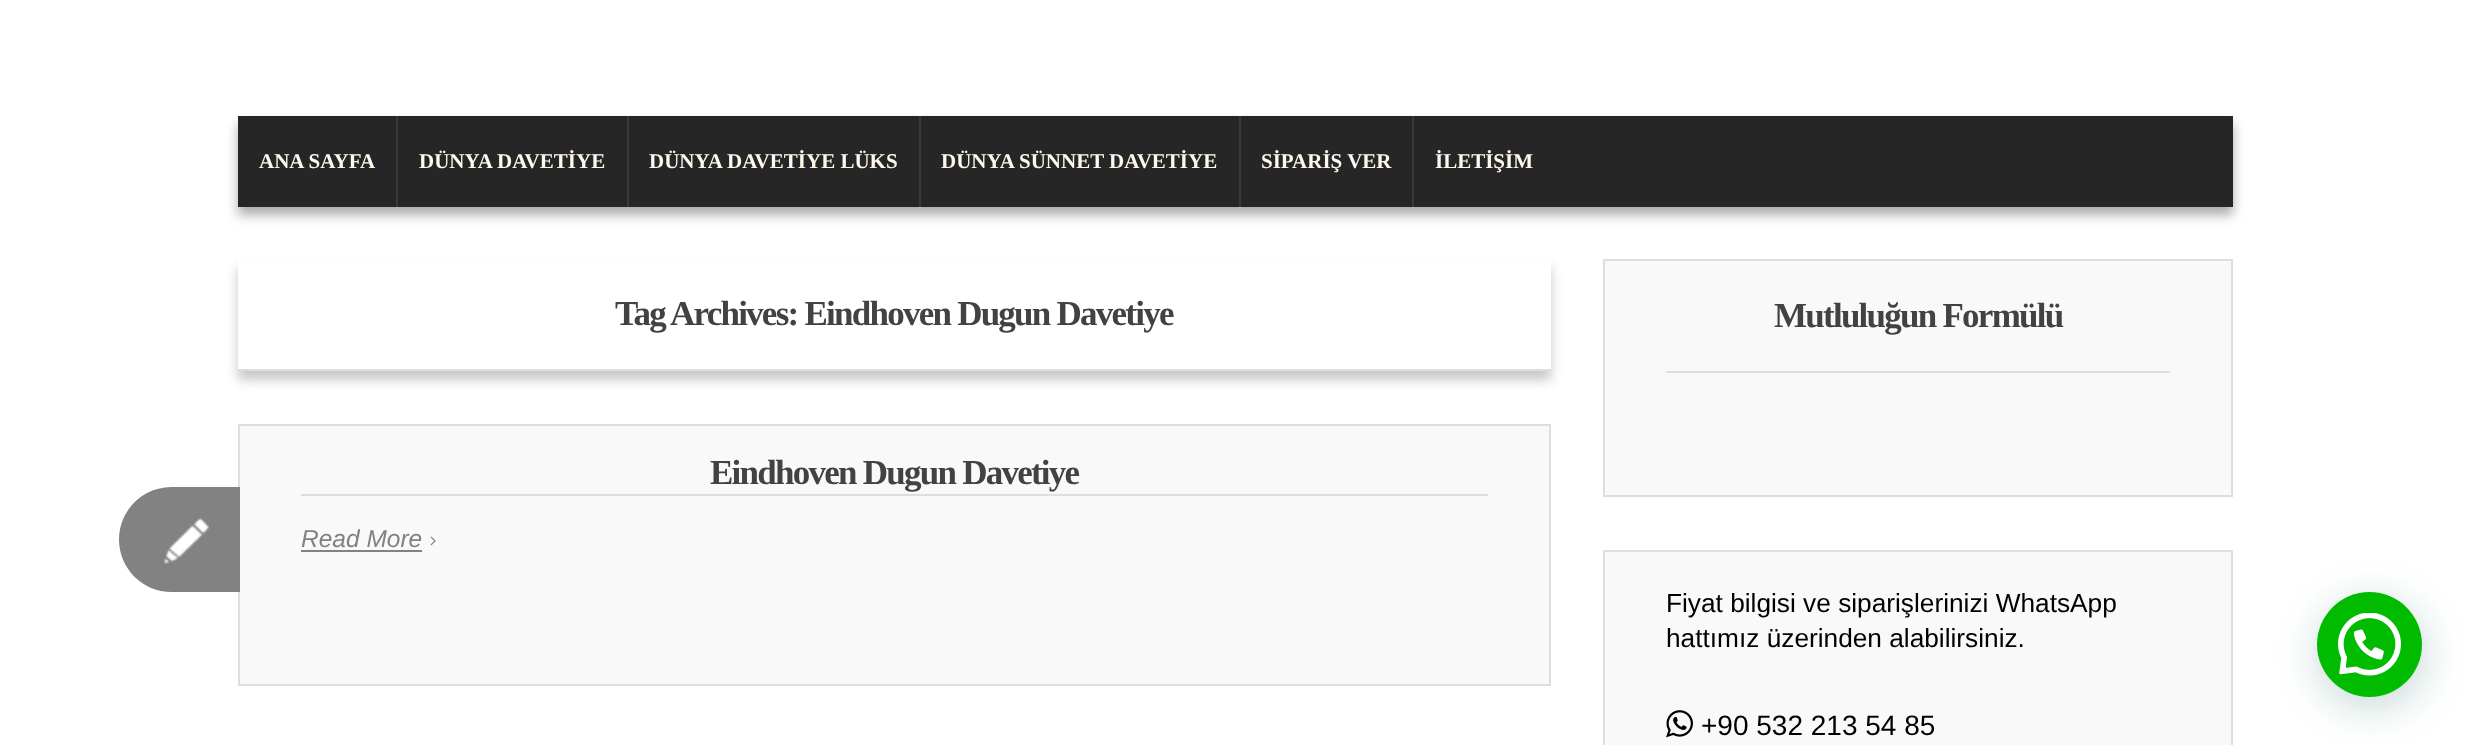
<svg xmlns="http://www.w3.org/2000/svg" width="2470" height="745">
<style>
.a{font:bold 21px Liberation Serif;fill:#fff8ed}
.b{font:bold 35px Liberation Serif;letter-spacing:-1.75px;fill:#434242}
.c{font:italic 24.5px Liberation Sans;fill:#828282}
.d{font:26.25px Liberation Sans;fill:#000}
.e{font:28px Liberation Sans;fill:#000}
</style>
<rect width="100%" height="100%" fill="#fff"/>
<path fill="#00000054" filter="blur(6px)" d="M238 124h1995v91H238z"/>
<path fill="#262626" d="M238 116h1995v91H238z"/>
<path fill="#3a3a3a" d="M396 116h2v91H396z"/>
<path fill="#3a3a3a" d="M627 116h2v91H627z"/>
<path fill="#3a3a3a" d="M919 116h2v91H919z"/>
<path fill="#3a3a3a" d="M1239 116h2v91H1239z"/>
<path fill="#3a3a3a" d="M1412 116h2v91H1412z"/>
<path fill="#00000038" filter="blur(6px)" d="M238 268h1313v112H238z"/>
<path fill="#fff" d="M238 259h1313v110H238z"/>
<path fill="#dedede" d="M238 369h1313v2H238z"/>
<path fill="#f9f9f9" stroke="#dedede" stroke-width="2" d="M239 425h1311v260H239z"/>
<path fill="#dedede" d="M301 494h1187v2H301z"/>
<path fill="#828282" d="M171.5 487h68.5v105h-68.5c-29 0-52.5-23.5-52.5-52.5c0-29 23.5-52.5 52.5-52.5z"/>
<image href="1.png" x="164" y="517" width="45" height="47"/>
<path fill="#828282" d="M301 550h121v2H301z"/>
<image href="2.png" x="430" y="536" width="6" height="10"/>
<path fill="#f9f9f9" stroke="#dedede" stroke-width="2" d="M1604 260h628v236H1604z"/>
<path fill="#dedede" d="M1666 371h504v2H1666z"/>
<path fill="#f9f9f9" stroke="#dedede" stroke-width="2" d="M1604 551h628v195H1604z"/>
<image href="3.png" x="1666" y="710" width="27" height="28"/>
<rect fill="#075e543d" filter="blur(21px)" x="2319" y="602" width="105" height="105" rx="52.5"/>
<circle fill="#0b0" cx="2369.5" cy="644.5" r="52.5"/>
<image href="4.png" x="2338" y="613" width="63" height="63"/>
<text class="a" x="259" y="168">ANA SAYFA</text>
<text class="a" x="419" y="168">DÜNYA DAVETİYE</text>
<text class="a" x="649" y="168">DÜNYA DAVETİYE LÜKS</text>
<text class="a" x="941" y="168">DÜNYA SÜNNET DAVETİYE</text>
<text class="a" x="1261" y="168">SİPARİŞ VER</text>
<text class="a" x="1435" y="168">İLETİŞİM</text>
<text class="b" x="615" y="325">Tag Archives: Eindhoven Dugun Davetiye</text>
<text class="b" x="710" y="484">Eindhoven Dugun Davetiye</text>
<text class="c" x="301" y="547">Read More</text>
<text class="b" x="1774" y="327">Mutluluğun Formülü</text>
<text class="d" x="1666" y="612">Fiyat bilgisi ve siparişlerinizi WhatsApp</text>
<text class="d" x="1666" y="647">hattımız üzerinden alabilirsiniz.</text>
<text class="e" x="1701" y="735">+90 532 213 54 85</text>
</svg>
